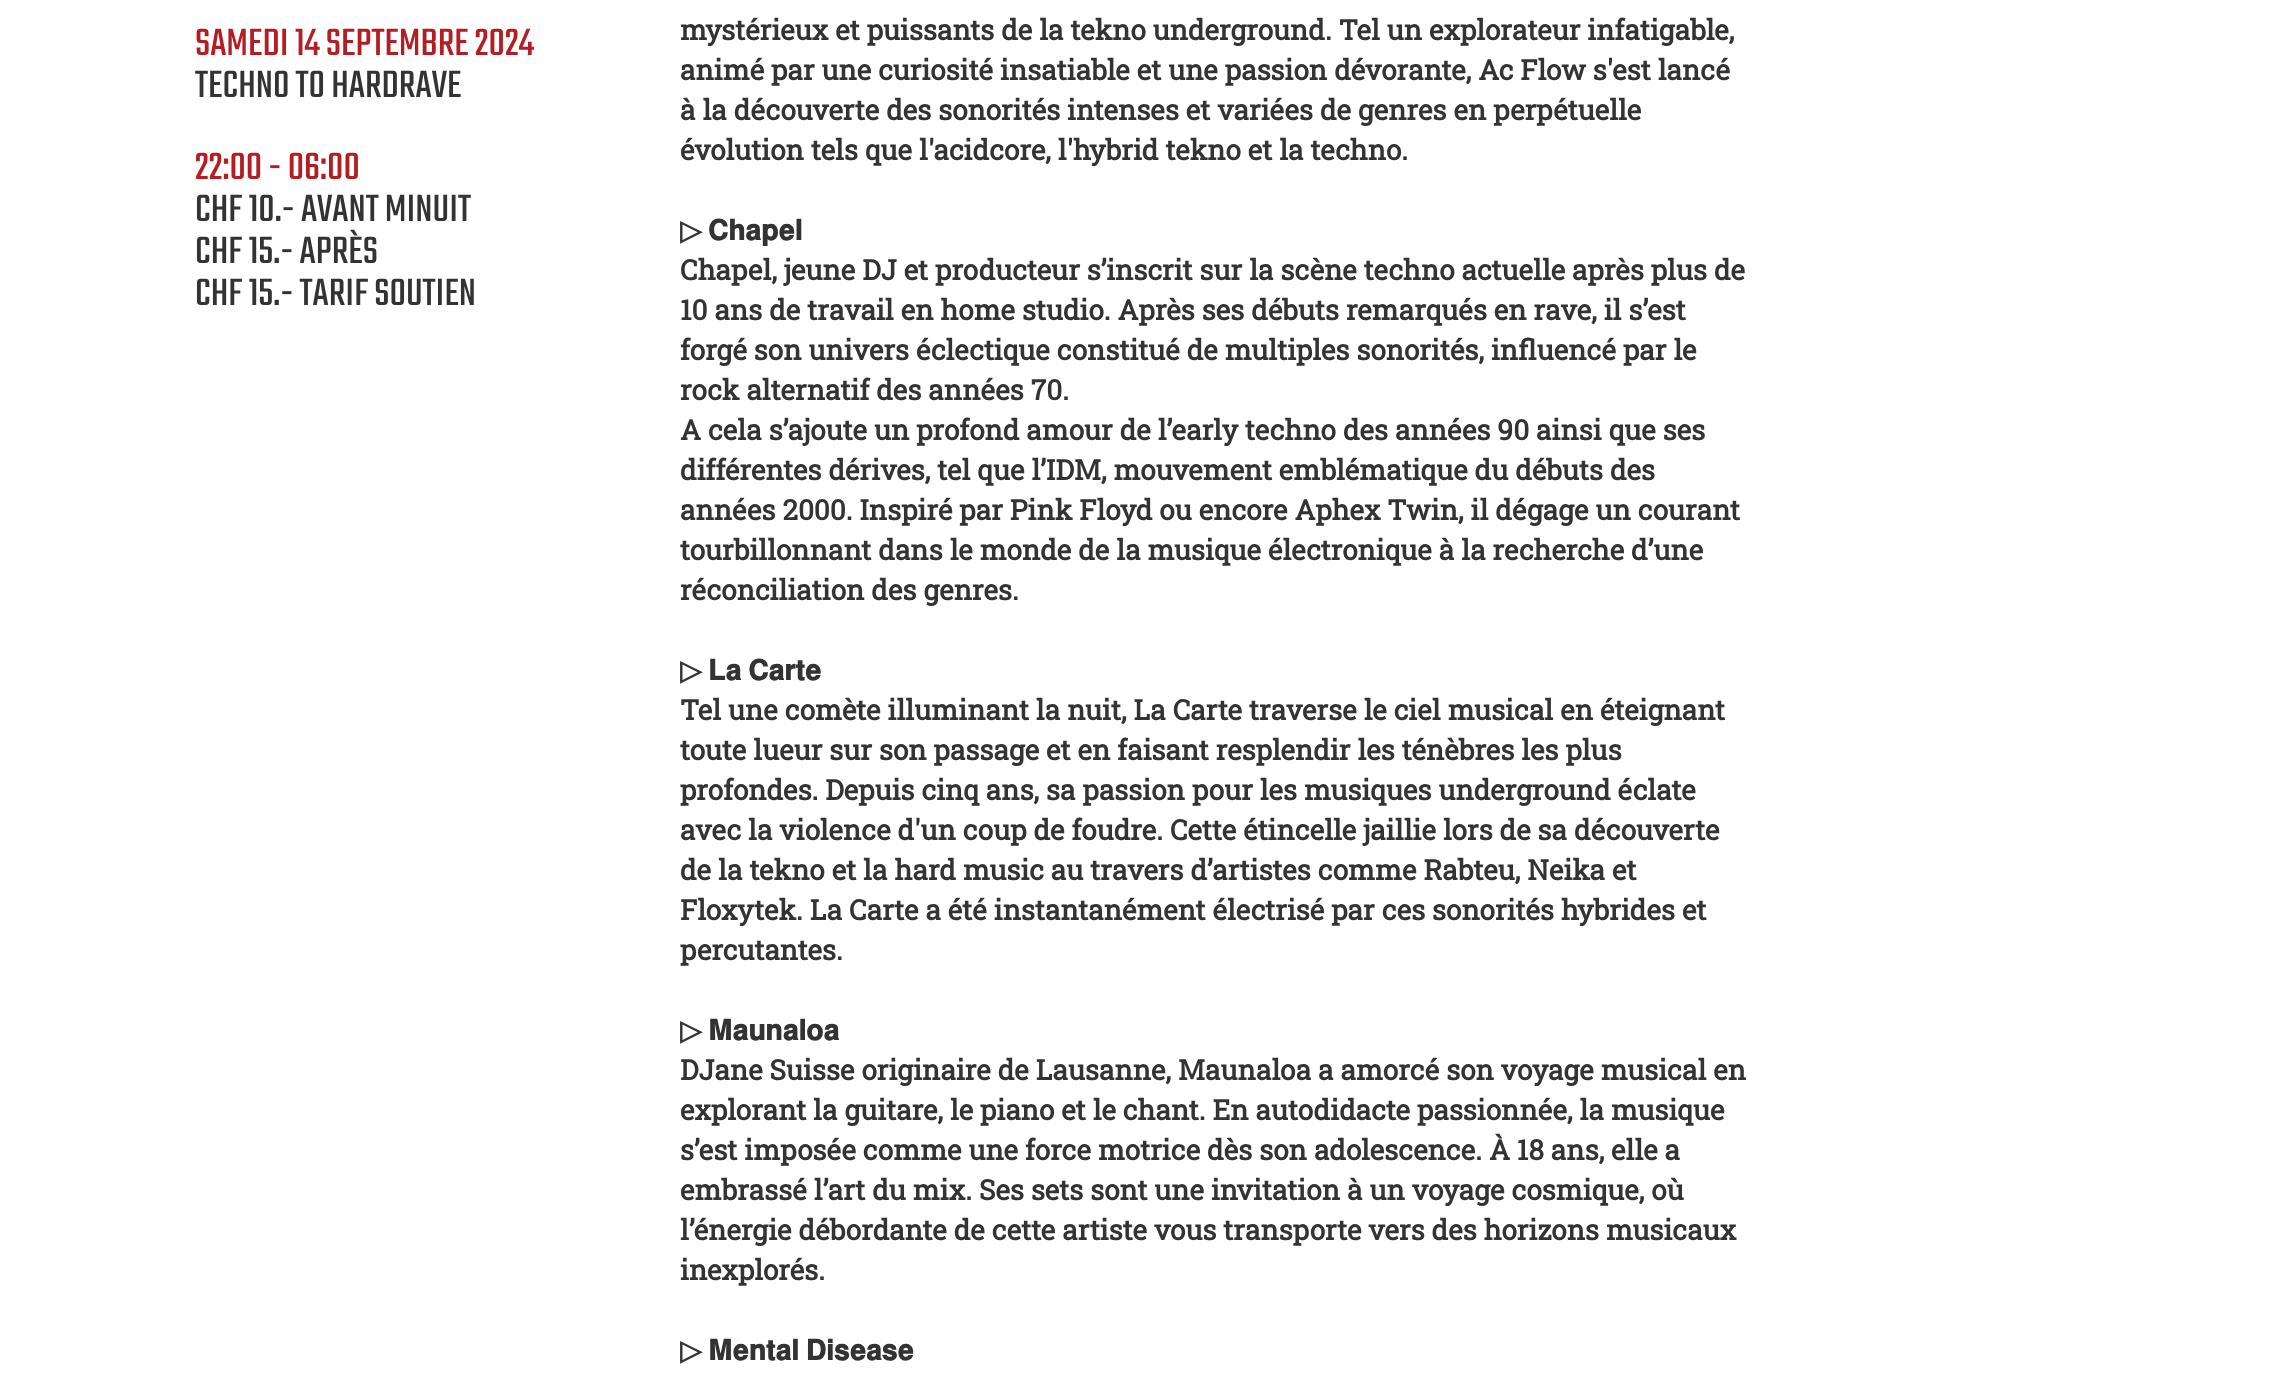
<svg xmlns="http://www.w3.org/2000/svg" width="2270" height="1393">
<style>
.a{font:300 42px Teko;fill:#b21e23}
.b{font:300 42px Teko;fill:#333}
.c{font:bold 28px Roboto Slab;fill:#333}
.d{font:bold 28px DejaVu Sans;fill:#333}
.e{font:bold 28px FreeSans;fill:#333}
</style>
<rect width="100%" height="100%" fill="#fff"/>
<text class="a" x="195" y="55">SAMEDI 14 SEPTEMBRE 2024</text>
<text class="b" x="195" y="97">TECHNO TO HARDRAVE</text>
<text class="a" x="195" y="179">22:00 - 06:00</text>
<text class="b" x="195" y="221">CHF 10.- AVANT MINUIT</text>
<text class="b" x="195" y="263">CHF 15.- APRÈS</text>
<text class="b" x="195" y="305">CHF 15.- TARIF SOUTIEN</text>
<text class="c" x="680" y="40">mystérieux et puissants de la tekno underground. Tel un explorateur infatigable,</text>
<text class="c" x="680" y="80">animé par une curiosité insatiable et une passion dévorante, Ac Flow s'est lancé</text>
<text class="c" x="680" y="120">à la découverte des sonorités intenses et variées de genres en perpétuelle</text>
<text class="c" x="680" y="160">évolution tels que l'acidcore, l'hybrid tekno et la techno.</text>
<text class="d" x="680" y="240">▷</text>
<text class="e" x="708" y="240">𝐂𝐡𝐚𝐩𝐞𝐥</text>
<text class="c" x="680" y="280">Chapel, jeune DJ et producteur s’inscrit sur la scène techno actuelle après plus de</text>
<text class="c" x="680" y="320">10 ans de travail en home studio. Après ses débuts remarqués en rave, il s’est</text>
<text class="c" x="680" y="360">forgé son univers éclectique constitué de multiples sonorités, influencé par le</text>
<text class="c" x="680" y="400">rock alternatif des années 70.</text>
<text class="c" x="680" y="440">A cela s’ajoute un profond amour de l’early techno des années 90 ainsi que ses</text>
<text class="c" x="680" y="480">différentes dérives, tel que l’IDM, mouvement emblématique du débuts des</text>
<text class="c" x="680" y="520">années 2000. Inspiré par Pink Floyd ou encore Aphex Twin, il dégage un courant</text>
<text class="c" x="680" y="560">tourbillonnant dans le monde de la musique électronique à la recherche d’une</text>
<text class="c" x="680" y="600">réconciliation des genres.</text>
<text class="d" x="680" y="680">▷</text>
<text class="e" x="708" y="680">𝐋𝐚 𝐂𝐚𝐫𝐭𝐞</text>
<text class="c" x="680" y="720">Tel une comète illuminant la nuit, La Carte traverse le ciel musical en éteignant</text>
<text class="c" x="680" y="760">toute lueur sur son passage et en faisant resplendir les ténèbres les plus</text>
<text class="c" x="680" y="800">profondes. Depuis cinq ans, sa passion pour les musiques underground éclate</text>
<text class="c" x="680" y="840">avec la violence d'un coup de foudre. Cette étincelle jaillie lors de sa découverte</text>
<text class="c" x="680" y="880">de la tekno et la hard music au travers d’artistes comme Rabteu, Neika et</text>
<text class="c" x="680" y="920">Floxytek. La Carte a été instantanément électrisé par ces sonorités hybrides et</text>
<text class="c" x="680" y="960">percutantes.</text>
<text class="d" x="680" y="1040">▷</text>
<text class="e" x="708" y="1040">𝐌𝐚𝐮𝐧𝐚𝐥𝐨𝐚</text>
<text class="c" x="680" y="1080">DJane Suisse originaire de Lausanne, Maunaloa a amorcé son voyage musical en</text>
<text class="c" x="680" y="1120">explorant la guitare, le piano et le chant. En autodidacte passionnée, la musique</text>
<text class="c" x="680" y="1160">s’est imposée comme une force motrice dès son adolescence. À 18 ans, elle a</text>
<text class="c" x="680" y="1200">embrassé l’art du mix. Ses sets sont une invitation à un voyage cosmique, où</text>
<text class="c" x="680" y="1240">l’énergie débordante de cette artiste vous transporte vers des horizons musicaux</text>
<text class="c" x="680" y="1280">inexplorés.</text>
<text class="d" x="680" y="1360">▷</text>
<text class="e" x="708" y="1360">𝐌𝐞𝐧𝐭𝐚𝐥 𝐃𝐢𝐬𝐞𝐚𝐬𝐞</text>
</svg>
